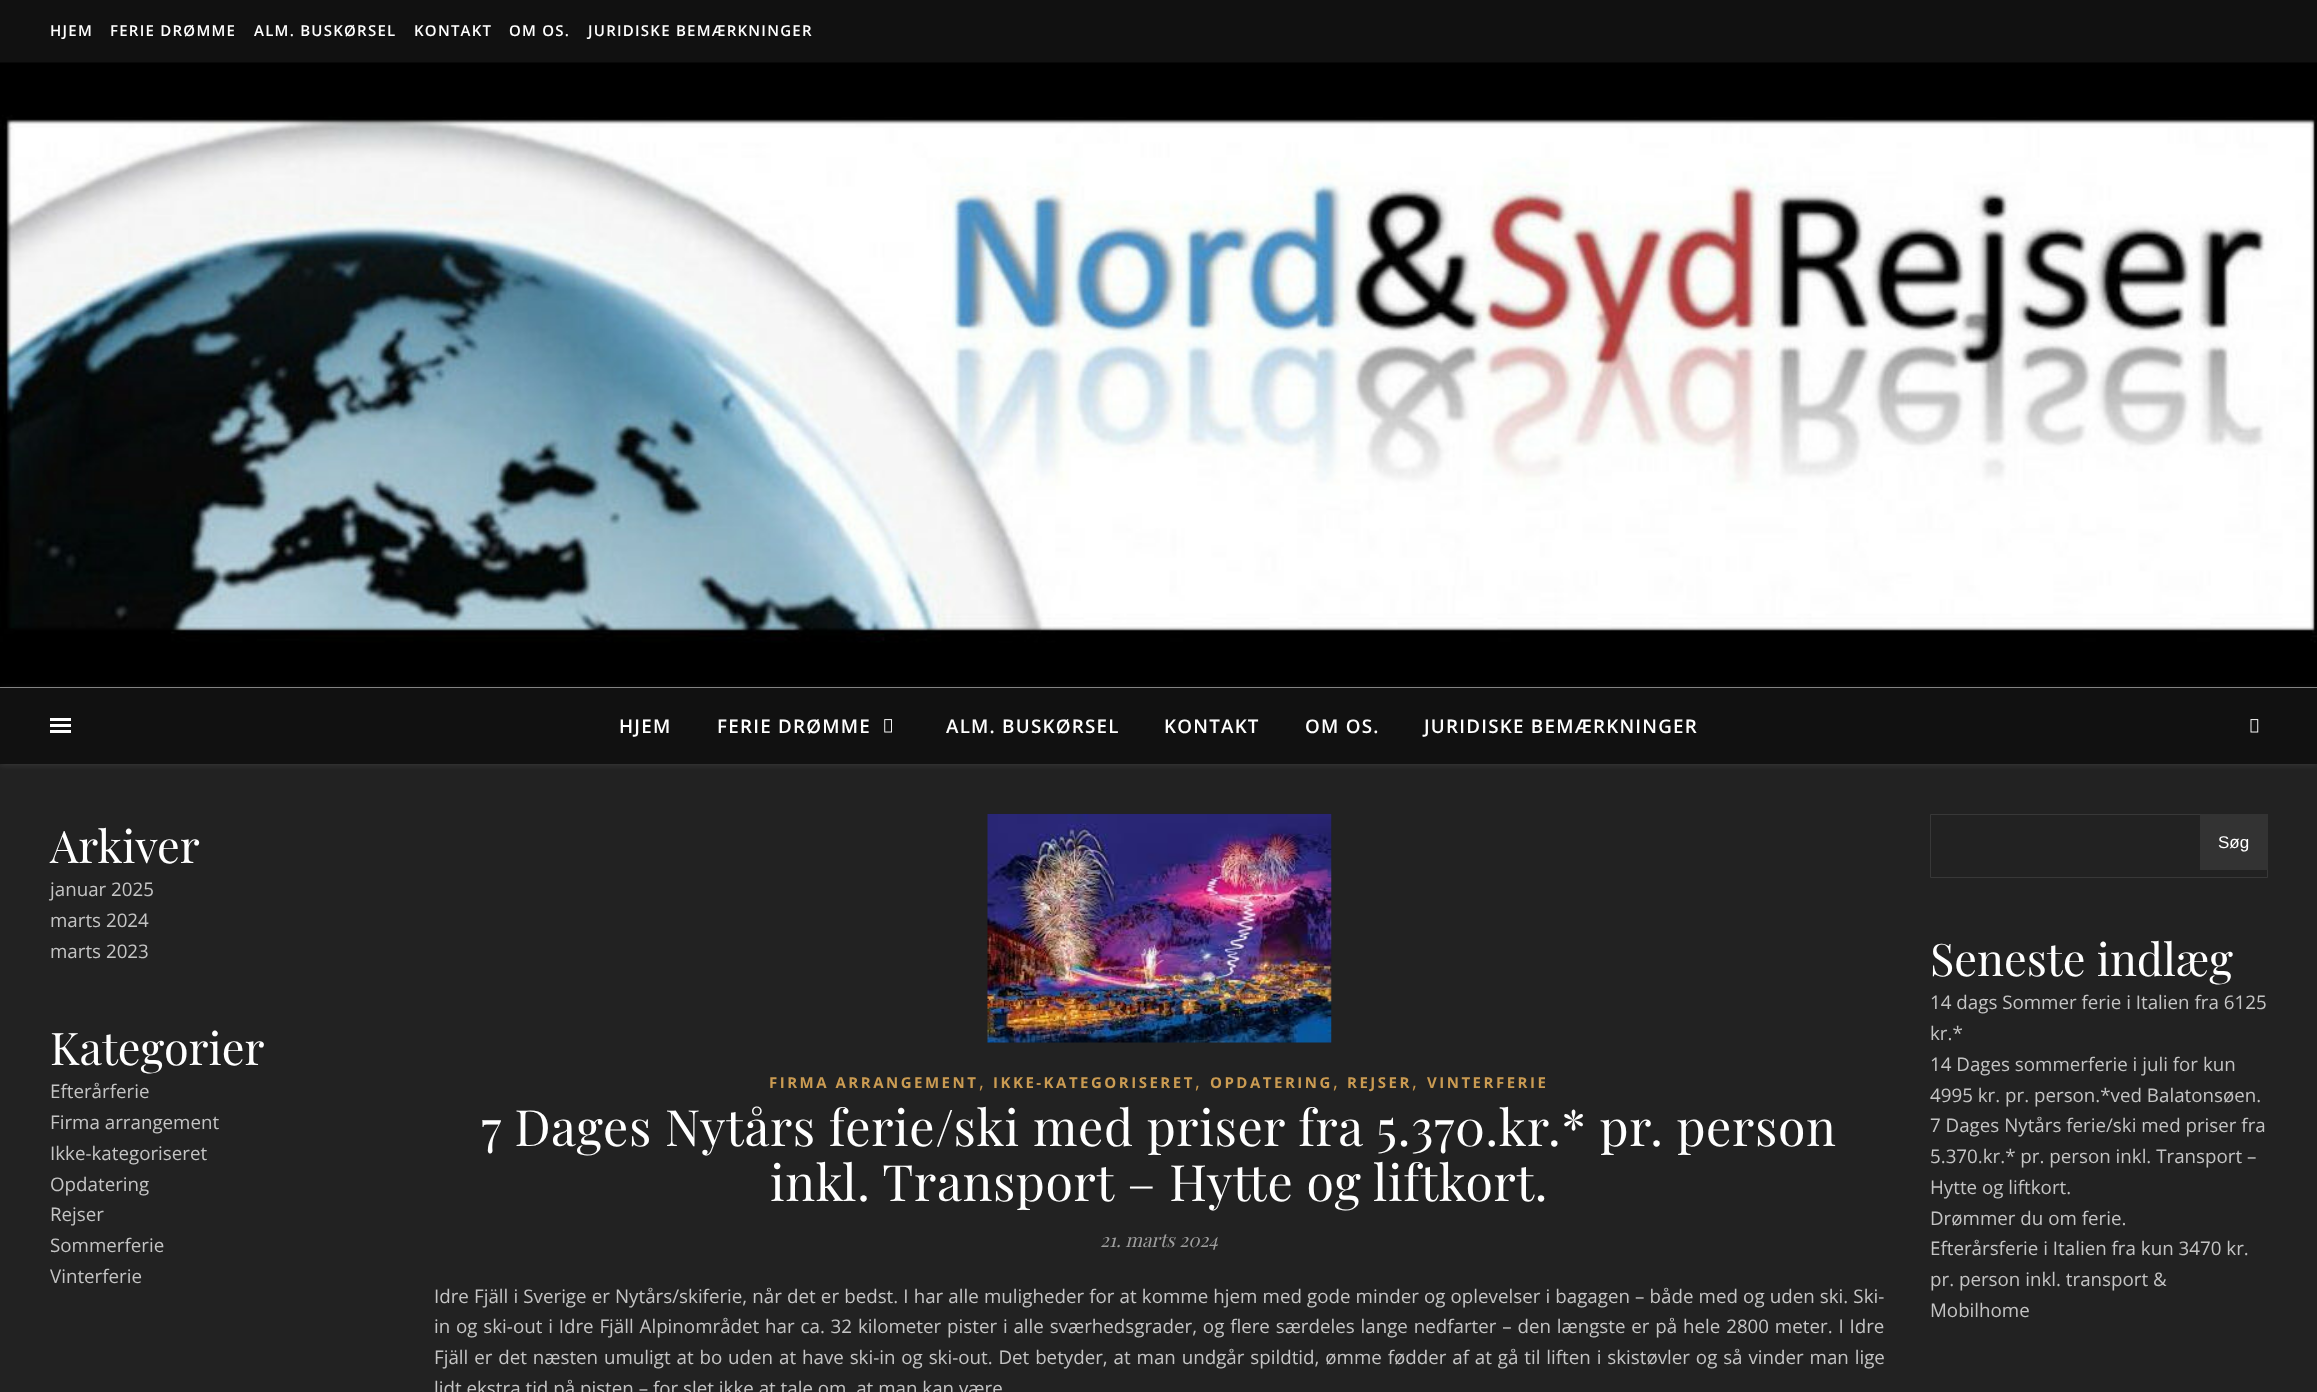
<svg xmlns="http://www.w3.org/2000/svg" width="2317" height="1392">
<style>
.a{font:600 15px Open Sans;letter-spacing:1.25px;fill:#fff}
.b{font:600 18.75px Open Sans;letter-spacing:1.25px;fill:#fff}
.c{font:45px Playfair Display;fill:#fff}
.d{font:18.75px Open Sans;fill:#c4c4c4}
.e{font:bold 15px Open Sans;letter-spacing:2.5px;fill:#ca9b52}
.f{font:18.75px Open Sans;fill:#ca9b52}
.g{font:50px Playfair Display;letter-spacing:0.62px;fill:#fff}
.h{font:italic 18.75px Playfair Display;fill:#9e9e9e}
.i{font:17px Liberation Sans;fill:#fff}
</style>
<rect width="100%" height="100%" fill="#222"/>
<path fill="#111" d="M0 0h2317v63H0z"/>
<path fill="#fff" d="M0 687h2317v1H0z"/>
<image href="1.png" x="0" y="62" width="2317" height="626"/>
<path fill="#ffffff1a" filter="blur(3px)" d="M0 689h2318v76H0z"/>
<path fill="#111" d="M0 688h2317v76H0z"/>
<path fill="#fff" d="M50 718h21v3H50z"/>
<path fill="#fff" d="M50 724h21v3H50z"/>
<path fill="#fff" d="M50 730h21v3H50z"/>
<image href="2.png" x="884" y="719" width="8" height="14"/>
<image href="3.png" x="2250" y="719" width="9" height="14"/>
<image href="4.png" x="987" y="813" width="345" height="230"/>
<path fill="none" stroke="#383838" d="M1930.5 814.5h337v63H1930.5z"/>
<path fill="#333" d="M2200 814h68v56H2200z"/>
<text class="a" x="50" y="36">HJEM</text>
<text class="a" x="110" y="36">FERIE DRØMME</text>
<text class="a" x="254" y="36">ALM. BUSKØRSEL</text>
<text class="a" x="414" y="36">KONTAKT</text>
<text class="a" x="509" y="36">OM OS.</text>
<text class="a" x="588" y="36">JURIDISKE BEMÆRKNINGER</text>
<text class="b" x="619" y="733">HJEM</text>
<text class="b" x="717" y="733">FERIE DRØMME</text>
<text class="b" x="946" y="733">ALM. BUSKØRSEL</text>
<text class="b" x="1164" y="733">KONTAKT</text>
<text class="b" x="1305" y="733">OM OS.</text>
<text class="b" x="1424" y="733">JURIDISKE BEMÆRKNINGER</text>
<text class="c" x="50" y="863">Arkiver</text>
<text class="d" x="50" y="896">januar 2025</text>
<text class="d" x="50" y="927">marts 2024</text>
<text class="d" x="50" y="958">marts 2023</text>
<text class="c" x="50" y="1065">Kategorier</text>
<text class="d" x="50" y="1098">Efterårferie</text>
<text class="d" x="50" y="1129">Firma arrangement</text>
<text class="d" x="50" y="1160">Ikke-kategoriseret</text>
<text class="d" x="50" y="1191">Opdatering</text>
<text class="d" x="50" y="1221">Rejser</text>
<text class="d" x="50" y="1252">Sommerferie</text>
<text class="d" x="50" y="1283">Vinterferie</text>
<text class="e" x="769" y="1088">FIRMA ARRANGEMENT</text>
<text class="f" x="979" y="1088">,</text>
<text class="e" x="993" y="1088">IKKE-KATEGORISERET</text>
<text class="f" x="1195" y="1088">,</text>
<text class="e" x="1210" y="1088">OPDATERING</text>
<text class="f" x="1333" y="1088">,</text>
<text class="e" x="1347" y="1088">REJSER</text>
<text class="f" x="1412" y="1088">,</text>
<text class="e" x="1427" y="1088">VINTERFERIE</text>
<text class="g" x="481" y="1146">7 Dages Nytårs ferie/ski med priser fra 5.370.kr.* pr. person</text>
<text class="g" x="770" y="1201">inkl. Transport – Hytte og liftkort.</text>
<text class="h" x="1100" y="1247">21. marts 2024</text>
<text class="d" x="434" y="1303" word-spacing="0.25">Idre Fjäll i Sverige er Nytårs/skiferie, når det er bedst. I har alle muligheder for at komme hjem med gode minder og oplevelser i bagagen – både med og uden ski. Ski-</text>
<text class="d" x="434" y="1333" word-spacing="0.95">in og ski-out i Idre Fjäll Alpinområdet har ca. 32 kilometer pister i alle sværhedsgrader, og flere særdeles lange nedfarter – den længste er på hele 2800 meter. I Idre</text>
<text class="d" x="434" y="1364" word-spacing="1">Fjäll er det næsten umuligt at bo uden at have ski-in og ski-out. Det betyder, at man undgår spildtid, ømme fødder af at gå til liften i skistøvler og så vinder man lige</text>
<text class="d" x="434" y="1395">lidt ekstra tid på pisten – for slet ikke at tale om, at man kan være</text>
<text class="i" x="2218" y="848">Søg</text>
<text class="c" x="1930" y="976">Seneste indlæg</text>
<text class="d" x="1930" y="1009">14 dags Sommer ferie i Italien fra 6125</text>
<text class="d" x="1930" y="1040">kr.*</text>
<text class="d" x="1930" y="1071">14 Dages sommerferie i juli for kun</text>
<text class="d" x="1930" y="1102">4995 kr. pr. person.*ved Balatonsøen.</text>
<text class="d" x="1930" y="1132">7 Dages Nytårs ferie/ski med priser fra</text>
<text class="d" x="1930" y="1163">5.370.kr.* pr. person inkl. Transport –</text>
<text class="d" x="1930" y="1194">Hytte og liftkort.</text>
<text class="d" x="1930" y="1225">Drømmer du om ferie.</text>
<text class="d" x="1930" y="1255">Efterårsferie i Italien fra kun 3470 kr.</text>
<text class="d" x="1930" y="1286">pr. person inkl. transport &amp;</text>
<text class="d" x="1930" y="1317">Mobilhome</text>
</svg>
